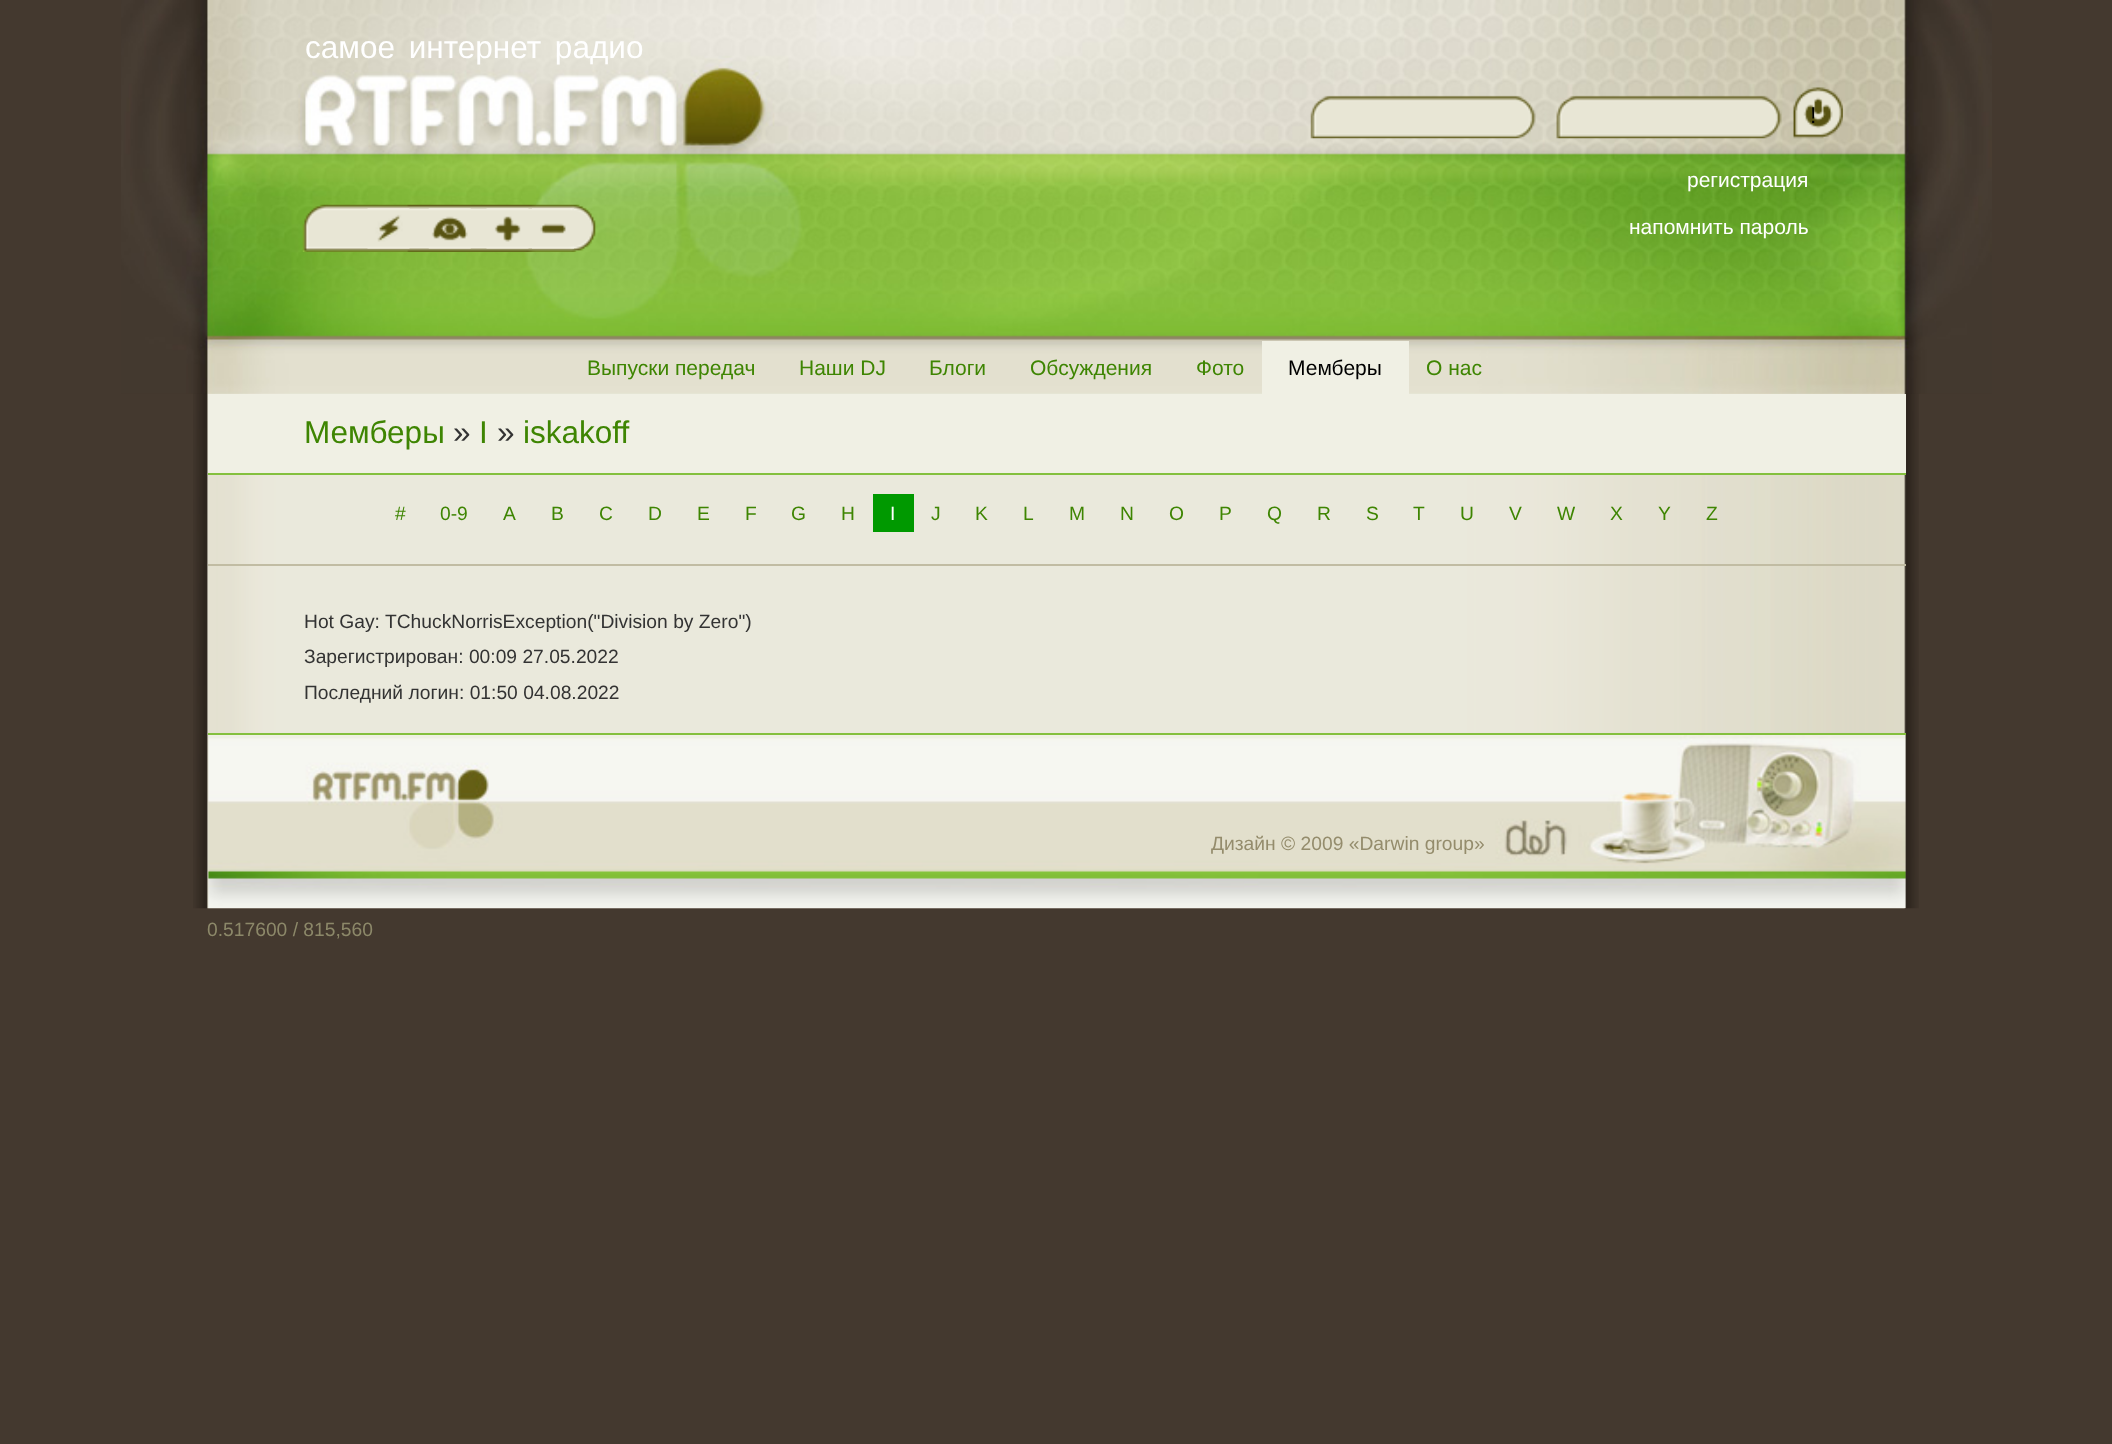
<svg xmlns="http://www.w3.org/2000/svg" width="2112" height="1444">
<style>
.a{font:31.5px Liberation Sans;fill:#fff}
.b{font:23px Liberation Sans;fill:#000}
.c{font:21px Liberation Sans;fill:#fff}
.d{font:21px Liberation Sans;fill:#3e8502}
.e{font:21px Liberation Sans;fill:#000}
.f{font:31.5px Liberation Sans;fill:#3e8502}
.g{font:31.5px Liberation Sans;fill:#333}
.h{font:19.25px Liberation Sans;fill:#3e8502}
.i{font:19.25px Liberation Sans;fill:#fff}
.j{font:19.25px Liberation Sans;fill:#333}
.k{font:19.25px Liberation Sans;fill:#948c6c}
.l{font:19.25px Liberation Sans;fill:#8c8869}
</style>
<rect width="100%" height="100%" fill="#44392f"/>
<image href="1.png" x="193" y="393" width="1726" height="516"/>
<image href="2.png" x="121" y="0" width="1871" height="394"/>
<image href="3.png" x="1310" y="87" width="533" height="52"/>
<image href="4.png" x="302" y="204" width="294" height="48"/>
<image href="5.png" x="367" y="208" width="43" height="41"/>
<image href="6.png" x="428" y="208" width="43" height="41"/>
<image href="7.png" x="486" y="208" width="43" height="41"/>
<image href="8.png" x="532" y="208" width="42" height="41"/>
<path fill="#f0f0e4" d="M1262 341h147v53H1262z"/>
<path fill="#f0f0e4" d="M208 394h1698v79H208z"/>
<path fill="#84c03e" d="M208 473h1698v2H208z"/>
<path fill="#c1bca3" d="M208 564h1698v2H208z"/>
<path fill="#090" d="M873 494h41v38H873z"/>
<path fill="#84c03e" d="M208 733h1698v2H208z"/>
<image href="9.png" x="208" y="735" width="1698" height="174"/>
<text class="a" x="305" y="58" word-spacing="5">самое интернет радио</text>
<text class="b" x="1810" y="123">!</text>
<text class="c" x="1687" y="187">регистрация</text>
<text class="c" x="1629" y="234">напомнить пароль</text>
<text class="d" x="587" y="375">Выпуски передач</text>
<text class="d" x="799" y="375">Наши DJ</text>
<text class="d" x="929" y="375">Блоги</text>
<text class="d" x="1030" y="375">Обсуждения</text>
<text class="d" x="1196" y="375">Фото</text>
<text class="e" x="1288" y="375">Мемберы</text>
<text class="d" x="1426" y="375">О нас</text>
<text class="f" x="304" y="443">Мемберы</text>
<text class="g" x="453" y="443">»</text>
<text class="f" x="479" y="443">I</text>
<text class="g" x="497" y="443">»</text>
<text class="f" x="523" y="443">iskakoff</text>
<text class="h" x="395" y="520">#</text>
<text class="h" x="440" y="520">0-9</text>
<text class="h" x="503" y="520">A</text>
<text class="h" x="551" y="520">B</text>
<text class="h" x="599" y="520">C</text>
<text class="h" x="648" y="520">D</text>
<text class="h" x="697" y="520">E</text>
<text class="h" x="745" y="520">F</text>
<text class="h" x="791" y="520">G</text>
<text class="h" x="841" y="520">H</text>
<text class="i" x="890" y="520">I</text>
<text class="h" x="931" y="520">J</text>
<text class="h" x="975" y="520">K</text>
<text class="h" x="1023" y="520">L</text>
<text class="h" x="1069" y="520">M</text>
<text class="h" x="1120" y="520">N</text>
<text class="h" x="1169" y="520">O</text>
<text class="h" x="1219" y="520">P</text>
<text class="h" x="1267" y="520">Q</text>
<text class="h" x="1317" y="520">R</text>
<text class="h" x="1366" y="520">S</text>
<text class="h" x="1413" y="520">T</text>
<text class="h" x="1460" y="520">U</text>
<text class="h" x="1509" y="520">V</text>
<text class="h" x="1557" y="520">W</text>
<text class="h" x="1610" y="520">X</text>
<text class="h" x="1658" y="520">Y</text>
<text class="h" x="1706" y="520">Z</text>
<text class="j" x="304" y="628">Hot Gay: TChuckNorrisException("Division by Zero")</text>
<text class="j" x="304" y="663">Зарегистрирован: 00:09 27.05.2022</text>
<text class="j" x="304" y="699">Последний логин: 01:50 04.08.2022</text>
<text class="k" x="1211" y="850">Дизайн © 2009 «Darwin group»</text>
<text class="l" x="207" y="936">0.517600 / 815,560</text>
</svg>
